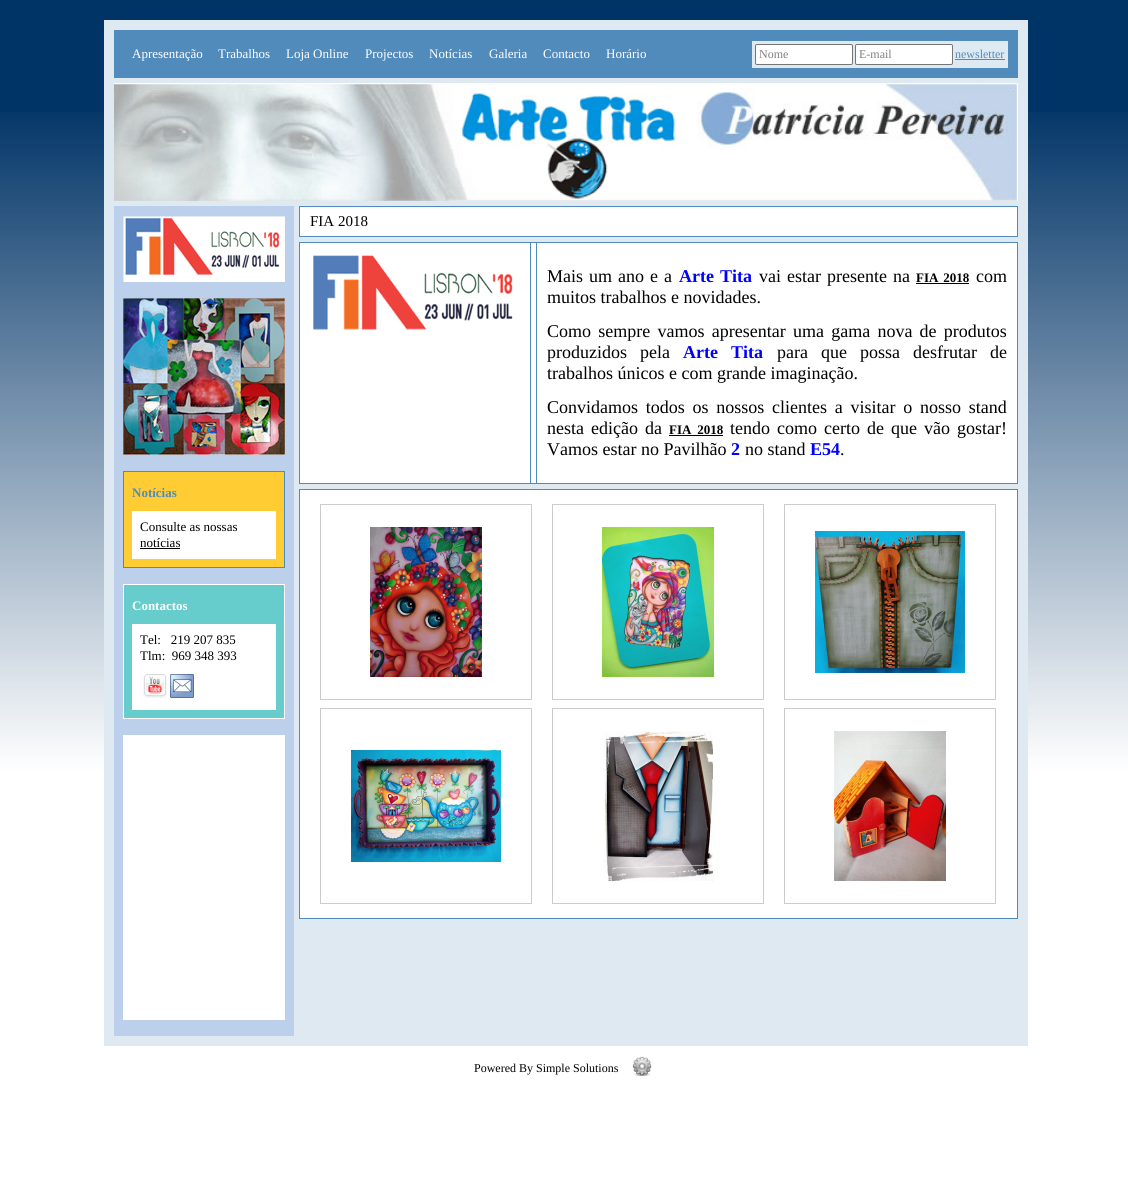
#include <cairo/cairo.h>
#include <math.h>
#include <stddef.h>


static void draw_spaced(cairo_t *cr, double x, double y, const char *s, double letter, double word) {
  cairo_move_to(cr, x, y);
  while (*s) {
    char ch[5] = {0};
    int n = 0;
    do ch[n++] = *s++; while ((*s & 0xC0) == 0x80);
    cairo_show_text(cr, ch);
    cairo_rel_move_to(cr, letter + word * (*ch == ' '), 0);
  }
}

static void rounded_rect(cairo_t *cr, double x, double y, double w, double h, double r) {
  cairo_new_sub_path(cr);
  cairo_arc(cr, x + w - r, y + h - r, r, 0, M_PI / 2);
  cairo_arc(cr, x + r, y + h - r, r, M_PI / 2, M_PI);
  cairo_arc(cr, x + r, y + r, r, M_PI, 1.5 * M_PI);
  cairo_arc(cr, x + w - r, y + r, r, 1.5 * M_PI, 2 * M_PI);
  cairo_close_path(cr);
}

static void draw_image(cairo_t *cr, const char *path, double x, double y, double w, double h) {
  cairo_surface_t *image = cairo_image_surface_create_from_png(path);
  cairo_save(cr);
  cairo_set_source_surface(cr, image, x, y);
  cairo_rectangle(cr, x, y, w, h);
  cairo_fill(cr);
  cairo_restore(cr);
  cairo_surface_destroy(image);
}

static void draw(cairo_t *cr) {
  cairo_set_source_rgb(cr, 0, 51 / 255.0, 102 / 255.0);
  cairo_paint(cr);
  draw_image(cr, "images/1.png", 0, 112, 1128, 1065);
  cairo_set_source_rgb(cr, 223 / 255.0, 233 / 255.0, 242 / 255.0);
  cairo_rectangle(cr, 104, 20, 924, 1026);
  cairo_fill(cr);
  cairo_set_source_rgb(cr, 81 / 255.0, 139 / 255.0, 187 / 255.0);
  cairo_rectangle(cr, 114, 30, 904, 48);
  cairo_fill(cr);
  cairo_set_source_rgb(cr, 223 / 255.0, 233 / 255.0, 242 / 255.0);
  cairo_rectangle(cr, 752, 41, 256, 27);
  cairo_fill(cr);
  cairo_set_source_rgb(cr, 1, 1, 1);
  rounded_rect(cr, 755.5, 44.5, 97, 20, 1.5);
  cairo_fill_preserve(cr);
  cairo_set_source_rgb(cr, 118 / 255.0, 118 / 255.0, 118 / 255.0);
  cairo_set_line_width(cr, 1);
  cairo_stroke(cr);
  cairo_set_source_rgb(cr, 1, 1, 1);
  rounded_rect(cr, 855.5, 44.5, 97, 20, 1.5);
  cairo_fill_preserve(cr);
  cairo_set_source_rgb(cr, 118 / 255.0, 118 / 255.0, 118 / 255.0);
  cairo_stroke(cr);
  cairo_set_source_rgb(cr, 81 / 255.0, 139 / 255.0, 187 / 255.0);
  cairo_rectangle(cr, 955, 59, 50, 1);
  cairo_fill(cr);
  draw_image(cr, "images/2.png", 114, 83, 904, 118);
  cairo_set_source_rgb(cr, 1, 1, 1);
  cairo_rectangle(cr, 299.5, 206.5, 718, 30);
  cairo_fill_preserve(cr);
  cairo_set_source_rgb(cr, 81 / 255.0, 139 / 255.0, 187 / 255.0);
  cairo_stroke(cr);
  cairo_set_source_rgb(cr, 1, 1, 1);
  cairo_rectangle(cr, 299.5, 242.5, 718, 241);
  cairo_fill_preserve(cr);
  cairo_set_source_rgb(cr, 81 / 255.0, 139 / 255.0, 187 / 255.0);
  cairo_stroke(cr);
  cairo_rectangle(cr, 299.5, 242.5, 231, 241);
  cairo_stroke(cr);
  draw_image(cr, "images/3.png", 313, 255, 200, 75);
  cairo_rectangle(cr, 536.5, 242.5, 481, 241);
  cairo_stroke(cr);
  cairo_set_source_rgb(cr, 0, 0, 0);
  cairo_rectangle(cr, 916, 283, 53, 1);
  cairo_fill(cr);
  cairo_rectangle(cr, 669, 435, 54, 1);
  cairo_fill(cr);
  cairo_set_source_rgb(cr, 1, 1, 1);
  cairo_rectangle(cr, 299.5, 489.5, 718, 429);
  cairo_fill_preserve(cr);
  cairo_set_source_rgb(cr, 81 / 255.0, 139 / 255.0, 187 / 255.0);
  cairo_stroke(cr);
  cairo_rectangle(cr, 320.5, 504.5, 211, 195);
  cairo_set_source_rgb(cr, 204 / 255.0, 204 / 255.0, 204 / 255.0);
  cairo_stroke(cr);
  draw_image(cr, "images/4.png", 370, 527, 112, 150);
  cairo_rectangle(cr, 552.5, 504.5, 211, 195);
  cairo_stroke(cr);
  draw_image(cr, "images/5.png", 602, 527, 112, 150);
  cairo_rectangle(cr, 784.5, 504.5, 211, 195);
  cairo_stroke(cr);
  draw_image(cr, "images/6.png", 815, 531, 150, 142);
  cairo_rectangle(cr, 320.5, 708.5, 211, 195);
  cairo_stroke(cr);
  draw_image(cr, "images/7.png", 351, 750, 150, 112);
  cairo_rectangle(cr, 552.5, 708.5, 211, 195);
  cairo_stroke(cr);
  draw_image(cr, "images/8.png", 603, 731, 110, 150);
  cairo_rectangle(cr, 784.5, 708.5, 211, 195);
  cairo_stroke(cr);
  draw_image(cr, "images/9.png", 834, 731, 112, 150);
  cairo_set_source_rgb(cr, 188 / 255.0, 208 / 255.0, 235 / 255.0);
  cairo_rectangle(cr, 114, 206, 180, 830);
  cairo_fill(cr);
  draw_image(cr, "images/10.png", 123, 216, 162, 66);
  draw_image(cr, "images/11.png", 123, 298, 162, 157);
  cairo_set_source_rgb(cr, 1, 204 / 255.0, 51 / 255.0);
  cairo_rectangle(cr, 123.5, 471.5, 161, 96);
  cairo_fill_preserve(cr);
  cairo_set_source_rgb(cr, 81 / 255.0, 139 / 255.0, 187 / 255.0);
  cairo_stroke(cr);
  cairo_set_source_rgb(cr, 1, 1, 1);
  cairo_rectangle(cr, 132, 511, 144, 48);
  cairo_fill(cr);
  cairo_set_source_rgb(cr, 0, 0, 0);
  cairo_rectangle(cr, 140, 548, 40, 1);
  cairo_fill(cr);
  cairo_set_source_rgb(cr, 102 / 255.0, 204 / 255.0, 204 / 255.0);
  cairo_rectangle(cr, 123.5, 584.5, 161, 134);
  cairo_fill_preserve(cr);
  cairo_set_source_rgb(cr, 1, 1, 1);
  cairo_stroke(cr);
  cairo_rectangle(cr, 132, 624, 144, 86);
  cairo_fill(cr);
  draw_image(cr, "images/12.png", 143, 674, 24, 24);
  draw_image(cr, "images/13.png", 170, 674, 24, 24);
  cairo_rectangle(cr, 123, 735, 162, 285);
  cairo_fill(cr);
  draw_image(cr, "images/14.png", 632, 1056, 20, 20);
  cairo_select_font_face(cr, "Liberation Serif", CAIRO_FONT_SLANT_NORMAL, CAIRO_FONT_WEIGHT_NORMAL);
  cairo_set_font_size(cr, 13);
  cairo_move_to(cr, 132, 58);
  cairo_show_text(cr, "Apresentação");
  cairo_move_to(cr, 218, 58);
  cairo_show_text(cr, "Trabalhos");
  cairo_move_to(cr, 286, 58);
  cairo_show_text(cr, "Loja Online");
  cairo_move_to(cr, 365, 58);
  cairo_show_text(cr, "Projectos");
  cairo_move_to(cr, 429, 58);
  cairo_show_text(cr, "Notícias");
  cairo_move_to(cr, 489, 58);
  cairo_show_text(cr, "Galeria");
  cairo_move_to(cr, 543, 58);
  cairo_show_text(cr, "Contacto");
  cairo_move_to(cr, 606, 58);
  cairo_show_text(cr, "Horário");
  cairo_set_font_size(cr, 12);
  cairo_set_source_rgb(cr, 128 / 255.0, 128 / 255.0, 128 / 255.0);
  cairo_move_to(cr, 759, 58);
  cairo_show_text(cr, "Nome");
  cairo_move_to(cr, 859, 58);
  cairo_show_text(cr, "E-mail");
  cairo_set_source_rgb(cr, 81 / 255.0, 139 / 255.0, 187 / 255.0);
  cairo_move_to(cr, 955, 58);
  cairo_show_text(cr, "newsletter");
  cairo_set_font_size(cr, 15);
  cairo_set_source_rgb(cr, 0, 0, 0);
  cairo_move_to(cr, 310, 226);
  cairo_show_text(cr, "FIA 2018");
  cairo_set_font_size(cr, 18);
  draw_spaced(cr, 547, 282, "Mais um ano e a", 0, 1.5);
  cairo_select_font_face(cr, "Liberation Serif", CAIRO_FONT_SLANT_NORMAL, CAIRO_FONT_WEIGHT_BOLD);
  cairo_set_source_rgb(cr, 0, 0, 1);
  draw_spaced(cr, 679, 282, "Arte Tita", 0, 1.5);
  cairo_select_font_face(cr, "Liberation Serif", CAIRO_FONT_SLANT_NORMAL, CAIRO_FONT_WEIGHT_NORMAL);
  cairo_set_source_rgb(cr, 0, 0, 0);
  draw_spaced(cr, 759, 282, "vai estar presente na", 0, 1.5);
  cairo_select_font_face(cr, "Liberation Serif", CAIRO_FONT_SLANT_NORMAL, CAIRO_FONT_WEIGHT_BOLD);
  cairo_set_font_size(cr, 13);
  draw_spaced(cr, 916, 282, "FIA 2018", 0, 1.5);
  cairo_select_font_face(cr, "Liberation Serif", CAIRO_FONT_SLANT_NORMAL, CAIRO_FONT_WEIGHT_NORMAL);
  cairo_set_font_size(cr, 18);
  cairo_move_to(cr, 976, 282);
  cairo_show_text(cr, "com");
  cairo_move_to(cr, 547, 303);
  cairo_show_text(cr, "muitos trabalhos e novidades.");
  draw_spaced(cr, 547, 337, "Como sempre vamos apresentar uma gama nova de produtos", 0, 2.75);
  draw_spaced(cr, 547, 358, "produzidos pela", 0, 8.5);
  cairo_select_font_face(cr, "Liberation Serif", CAIRO_FONT_SLANT_NORMAL, CAIRO_FONT_WEIGHT_BOLD);
  cairo_set_source_rgb(cr, 0, 0, 1);
  cairo_move_to(cr, 683, 358);
  cairo_show_text(cr, "Arte");
  cairo_move_to(cr, 731, 358);
  cairo_show_text(cr, "Tita");
  cairo_select_font_face(cr, "Liberation Serif", CAIRO_FONT_SLANT_NORMAL, CAIRO_FONT_WEIGHT_NORMAL);
  cairo_set_source_rgb(cr, 0, 0, 0);
  draw_spaced(cr, 777, 358, "para que possa desfrutar de", 0, 8.5);
  cairo_move_to(cr, 547, 379);
  cairo_show_text(cr, "trabalhos únicos e com grande imaginação.");
  draw_spaced(cr, 547, 413, "Convidamos todos os nossos clientes a visitar o nosso stand", 0, 3.25);
  draw_spaced(cr, 547, 434, "nesta edição da", 0, 2.5);
  cairo_select_font_face(cr, "Liberation Serif", CAIRO_FONT_SLANT_NORMAL, CAIRO_FONT_WEIGHT_BOLD);
  cairo_set_font_size(cr, 13);
  draw_spaced(cr, 669, 434, "FIA 2018", 0, 2.5);
  cairo_select_font_face(cr, "Liberation Serif", CAIRO_FONT_SLANT_NORMAL, CAIRO_FONT_WEIGHT_NORMAL);
  cairo_set_font_size(cr, 18);
  draw_spaced(cr, 730, 434, "tendo como certo de que vão gostar!", 0, 2.5);
  cairo_move_to(cr, 547, 455);
  cairo_show_text(cr, "Vamos estar no Pavilhão");
  cairo_select_font_face(cr, "Liberation Serif", CAIRO_FONT_SLANT_NORMAL, CAIRO_FONT_WEIGHT_BOLD);
  cairo_set_source_rgb(cr, 0, 0, 1);
  cairo_move_to(cr, 731, 455);
  cairo_show_text(cr, "2");
  cairo_select_font_face(cr, "Liberation Serif", CAIRO_FONT_SLANT_NORMAL, CAIRO_FONT_WEIGHT_NORMAL);
  cairo_set_source_rgb(cr, 0, 0, 0);
  cairo_move_to(cr, 745, 455);
  cairo_show_text(cr, "no stand");
  cairo_select_font_face(cr, "Liberation Serif", CAIRO_FONT_SLANT_NORMAL, CAIRO_FONT_WEIGHT_BOLD);
  cairo_set_source_rgb(cr, 0, 0, 1);
  cairo_move_to(cr, 810, 455);
  cairo_show_text(cr, "E54");
  cairo_select_font_face(cr, "Liberation Serif", CAIRO_FONT_SLANT_NORMAL, CAIRO_FONT_WEIGHT_NORMAL);
  cairo_set_source_rgb(cr, 0, 0, 0);
  cairo_move_to(cr, 840, 455);
  cairo_show_text(cr, ".");
  cairo_select_font_face(cr, "Liberation Serif", CAIRO_FONT_SLANT_NORMAL, CAIRO_FONT_WEIGHT_BOLD);
  cairo_set_font_size(cr, 13);
  cairo_set_source_rgb(cr, 81 / 255.0, 139 / 255.0, 187 / 255.0);
  cairo_move_to(cr, 132, 497);
  cairo_show_text(cr, "Notícias");
  cairo_select_font_face(cr, "Liberation Serif", CAIRO_FONT_SLANT_NORMAL, CAIRO_FONT_WEIGHT_NORMAL);
  cairo_set_source_rgb(cr, 0, 0, 0);
  cairo_move_to(cr, 140, 531);
  cairo_show_text(cr, "Consulte as nossas");
  cairo_move_to(cr, 140, 547);
  cairo_show_text(cr, "notícias");
  cairo_select_font_face(cr, "Liberation Serif", CAIRO_FONT_SLANT_NORMAL, CAIRO_FONT_WEIGHT_BOLD);
  cairo_set_source_rgb(cr, 1, 1, 1);
  cairo_move_to(cr, 132, 610);
  cairo_show_text(cr, "Contactos");
  cairo_select_font_face(cr, "Liberation Serif", CAIRO_FONT_SLANT_NORMAL, CAIRO_FONT_WEIGHT_NORMAL);
  cairo_set_source_rgb(cr, 0, 0, 0);
  cairo_move_to(cr, 140, 644);
  cairo_show_text(cr, "Tel:   219 207 835");
  cairo_move_to(cr, 140, 660);
  cairo_show_text(cr, "Tlm:  969 348 393");
  cairo_set_font_size(cr, 12);
  cairo_move_to(cr, 474, 1072);
  cairo_show_text(cr, "Powered By Simple Solutions");
}

int main(void) {
  cairo_surface_t *surface = cairo_image_surface_create(CAIRO_FORMAT_RGB24, 1128, 1177);
  cairo_t *cr = cairo_create(surface);
  cairo_font_options_t *options = cairo_font_options_create();
  cairo_font_options_set_hint_metrics(options, CAIRO_HINT_METRICS_OFF);
  cairo_font_options_set_hint_style(options, CAIRO_HINT_STYLE_NONE);
  cairo_set_font_options(cr, options);
  cairo_set_miter_limit(cr, 4);
  draw(cr);
  cairo_surface_write_to_png(surface, "out.png");
  cairo_font_options_destroy(options);
  cairo_destroy(cr);
  cairo_surface_destroy(surface);
  return 0;
}
